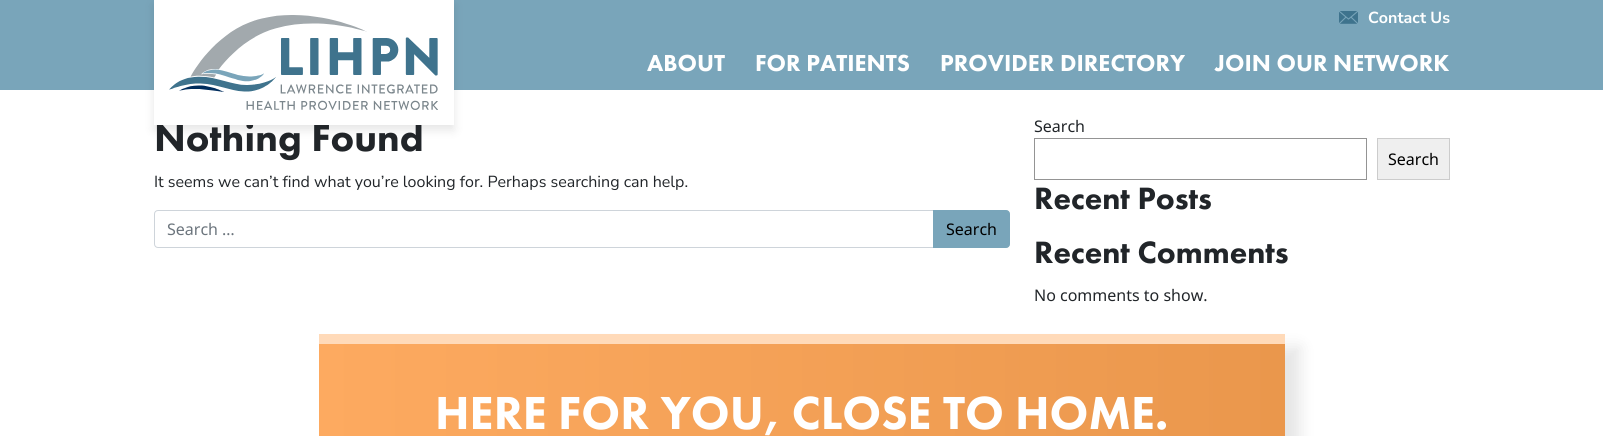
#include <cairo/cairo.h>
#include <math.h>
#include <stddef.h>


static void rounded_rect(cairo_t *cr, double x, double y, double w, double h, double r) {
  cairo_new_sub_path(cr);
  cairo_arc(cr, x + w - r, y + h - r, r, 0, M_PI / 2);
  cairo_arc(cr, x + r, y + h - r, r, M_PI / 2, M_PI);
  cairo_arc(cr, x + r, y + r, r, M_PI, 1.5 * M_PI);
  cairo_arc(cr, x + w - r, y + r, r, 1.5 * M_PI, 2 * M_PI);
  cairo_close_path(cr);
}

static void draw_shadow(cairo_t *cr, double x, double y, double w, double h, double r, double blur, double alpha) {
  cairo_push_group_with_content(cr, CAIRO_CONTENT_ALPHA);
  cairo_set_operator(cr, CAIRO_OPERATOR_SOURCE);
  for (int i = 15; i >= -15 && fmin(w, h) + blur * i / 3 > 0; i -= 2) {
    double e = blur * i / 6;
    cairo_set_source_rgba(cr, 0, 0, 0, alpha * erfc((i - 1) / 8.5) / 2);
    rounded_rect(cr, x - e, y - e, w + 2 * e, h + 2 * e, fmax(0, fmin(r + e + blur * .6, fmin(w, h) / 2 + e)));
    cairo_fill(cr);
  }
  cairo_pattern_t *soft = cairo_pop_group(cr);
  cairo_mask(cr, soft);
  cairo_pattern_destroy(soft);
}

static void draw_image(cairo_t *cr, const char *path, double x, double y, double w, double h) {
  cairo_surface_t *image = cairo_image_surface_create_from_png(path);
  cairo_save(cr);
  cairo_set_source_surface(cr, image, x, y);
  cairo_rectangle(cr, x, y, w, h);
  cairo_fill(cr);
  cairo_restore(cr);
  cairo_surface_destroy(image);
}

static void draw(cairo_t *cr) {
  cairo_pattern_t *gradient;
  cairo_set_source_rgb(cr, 1, 1, 1);
  cairo_paint(cr);
  cairo_set_source_rgb(cr, 121 / 255.0, 165 / 255.0, 186 / 255.0);
  cairo_rectangle(cr, 0, 0, 1603, 90);
  cairo_fill(cr);
  cairo_set_source_rgb(cr, 0, 0, 0);
  draw_shadow(cr, 154, 5, 300, 125, 0, 5, 0.1);
  draw_image(cr, "images/2.png", 1339, 11, 19, 13);
  cairo_new_path(cr);
  cairo_move_to(cr, 158, 210.5);
  cairo_line_to(cr, 933.5, 210.5);
  cairo_line_to(cr, 933.5, 247.5);
  cairo_line_to(cr, 158, 247.5);
  cairo_curve_to(cr, 156, 247.5, 154.5, 246, 154.5, 244);
  cairo_line_to(cr, 154.5, 214);
  cairo_curve_to(cr, 154.5, 212, 156, 210.5, 158, 210.5);
  cairo_close_path(cr);
  cairo_set_source_rgb(cr, 206 / 255.0, 212 / 255.0, 218 / 255.0);
  cairo_set_line_width(cr, 1);
  cairo_stroke(cr);
  cairo_set_source_rgb(cr, 121 / 255.0, 165 / 255.0, 186 / 255.0);
  cairo_new_path(cr);
  cairo_move_to(cr, 933.5, 210.5);
  cairo_line_to(cr, 1006, 210.5);
  cairo_curve_to(cr, 1008, 210.5, 1009.5, 212, 1009.5, 214);
  cairo_line_to(cr, 1009.5, 244);
  cairo_curve_to(cr, 1009.5, 246, 1008, 247.5, 1006, 247.5);
  cairo_line_to(cr, 933.5, 247.5);
  cairo_close_path(cr);
  cairo_fill_preserve(cr);
  cairo_stroke(cr);
  cairo_rectangle(cr, 1034.5, 138.5, 332, 41);
  cairo_set_source_rgb(cr, 148 / 255.0, 148 / 255.0, 148 / 255.0);
  cairo_stroke(cr);
  cairo_set_source_rgb(cr, 239 / 255.0, 239 / 255.0, 239 / 255.0);
  cairo_rectangle(cr, 1377.5, 138.5, 72, 41);
  cairo_fill_preserve(cr);
  cairo_set_source_rgb(cr, 204 / 255.0, 204 / 255.0, 204 / 255.0);
  cairo_stroke(cr);
  cairo_set_source_rgb(cr, 0, 0, 0);
  draw_shadow(cr, 334, 347, 966, 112, 0, 7.5, 0.1);
  gradient = cairo_pattern_create_linear(319, 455, 1285, 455);
  cairo_pattern_add_color_stop_rgba(gradient, 0, 253 / 255.0, 170 / 255.0, 96 / 255.0, 1);
  cairo_pattern_add_color_stop_rgba(gradient, 1, 234 / 255.0, 151 / 255.0, 76 / 255.0, 1);
  cairo_set_source(cr, gradient);
  cairo_pattern_destroy(gradient);
  cairo_rectangle(cr, 319, 344, 966, 92);
  cairo_fill(cr);
  cairo_set_source_rgb(cr, 1, 218 / 255.0, 185 / 255.0);
  cairo_rectangle(cr, 319, 334, 966, 10);
  cairo_fill(cr);
  cairo_select_font_face(cr, "Nunito Sans", CAIRO_FONT_SLANT_NORMAL, CAIRO_FONT_WEIGHT_BOLD);
  cairo_set_font_size(cr, 16);
  cairo_set_source_rgb(cr, 1, 1, 1);
  cairo_move_to(cr, 1368, 23);
  cairo_show_text(cr, "Contact Us");
  cairo_select_font_face(cr, "Futura PT Black", CAIRO_FONT_SLANT_NORMAL, CAIRO_FONT_WEIGHT_NORMAL);
  cairo_set_font_size(cr, 24);
  cairo_move_to(cr, 647, 71);
  cairo_show_text(cr, "ABOUT");
  cairo_move_to(cr, 755, 71);
  cairo_show_text(cr, "FOR PATIENTS");
  cairo_move_to(cr, 940, 71);
  cairo_show_text(cr, "PROVIDER DIRECTORY");
  cairo_move_to(cr, 1215, 71);
  cairo_show_text(cr, "JOIN OUR NETWORK");
  cairo_set_font_size(cr, 40);
  cairo_set_source_rgb(cr, 33 / 255.0, 37 / 255.0, 41 / 255.0);
  cairo_move_to(cr, 154, 151);
  cairo_show_text(cr, "Nothing Found");
  cairo_set_source_rgb(cr, 1, 1, 1);
  cairo_rectangle(cr, 154, 0, 300, 125);
  cairo_fill(cr);
  draw_image(cr, "images/1.png", 169, 15, 269, 95);
  cairo_select_font_face(cr, "Nunito Sans", CAIRO_FONT_SLANT_NORMAL, CAIRO_FONT_WEIGHT_NORMAL);
  cairo_set_font_size(cr, 16);
  cairo_set_source_rgb(cr, 33 / 255.0, 37 / 255.0, 41 / 255.0);
  cairo_move_to(cr, 154, 187);
  cairo_show_text(cr, "It seems we can’t find what you’re looking for. Perhaps searching can help.");
  cairo_select_font_face(cr, "Noto Sans", CAIRO_FONT_SLANT_NORMAL, CAIRO_FONT_WEIGHT_NORMAL);
  cairo_set_source_rgb(cr, 108 / 255.0, 117 / 255.0, 125 / 255.0);
  cairo_move_to(cr, 167, 235);
  cairo_show_text(cr, "Search …");
  cairo_set_source_rgb(cr, 0, 0, 0);
  cairo_move_to(cr, 946, 235);
  cairo_show_text(cr, "Search");
  cairo_set_source_rgb(cr, 33 / 255.0, 37 / 255.0, 41 / 255.0);
  cairo_move_to(cr, 1034, 132);
  cairo_show_text(cr, "Search");
  cairo_set_source_rgb(cr, 0, 0, 0);
  cairo_move_to(cr, 1388, 165);
  cairo_show_text(cr, "Search");
  cairo_select_font_face(cr, "Futura PT Black", CAIRO_FONT_SLANT_NORMAL, CAIRO_FONT_WEIGHT_NORMAL);
  cairo_set_font_size(cr, 32);
  cairo_set_source_rgb(cr, 33 / 255.0, 37 / 255.0, 41 / 255.0);
  cairo_move_to(cr, 1034, 209);
  cairo_show_text(cr, "Recent Posts");
  cairo_move_to(cr, 1034, 263);
  cairo_show_text(cr, "Recent Comments");
  cairo_select_font_face(cr, "Noto Sans", CAIRO_FONT_SLANT_NORMAL, CAIRO_FONT_WEIGHT_NORMAL);
  cairo_set_font_size(cr, 16);
  cairo_move_to(cr, 1034, 301);
  cairo_show_text(cr, "No comments to show.");
  cairo_select_font_face(cr, "Futura PT Black", CAIRO_FONT_SLANT_NORMAL, CAIRO_FONT_WEIGHT_NORMAL);
  cairo_set_font_size(cr, 48);
  cairo_set_source_rgb(cr, 1, 1, 1);
  cairo_move_to(cr, 435, 429);
  cairo_show_text(cr, "HERE FOR YOU, CLOSE TO HOME.");
}

int main(void) {
  cairo_surface_t *surface = cairo_image_surface_create(CAIRO_FORMAT_RGB24, 1603, 436);
  cairo_t *cr = cairo_create(surface);
  cairo_font_options_t *options = cairo_font_options_create();
  cairo_font_options_set_hint_metrics(options, CAIRO_HINT_METRICS_OFF);
  cairo_font_options_set_hint_style(options, CAIRO_HINT_STYLE_NONE);
  cairo_set_font_options(cr, options);
  cairo_set_miter_limit(cr, 4);
  draw(cr);
  cairo_surface_write_to_png(surface, "out.png");
  cairo_font_options_destroy(options);
  cairo_destroy(cr);
  cairo_surface_destroy(surface);
  return 0;
}
